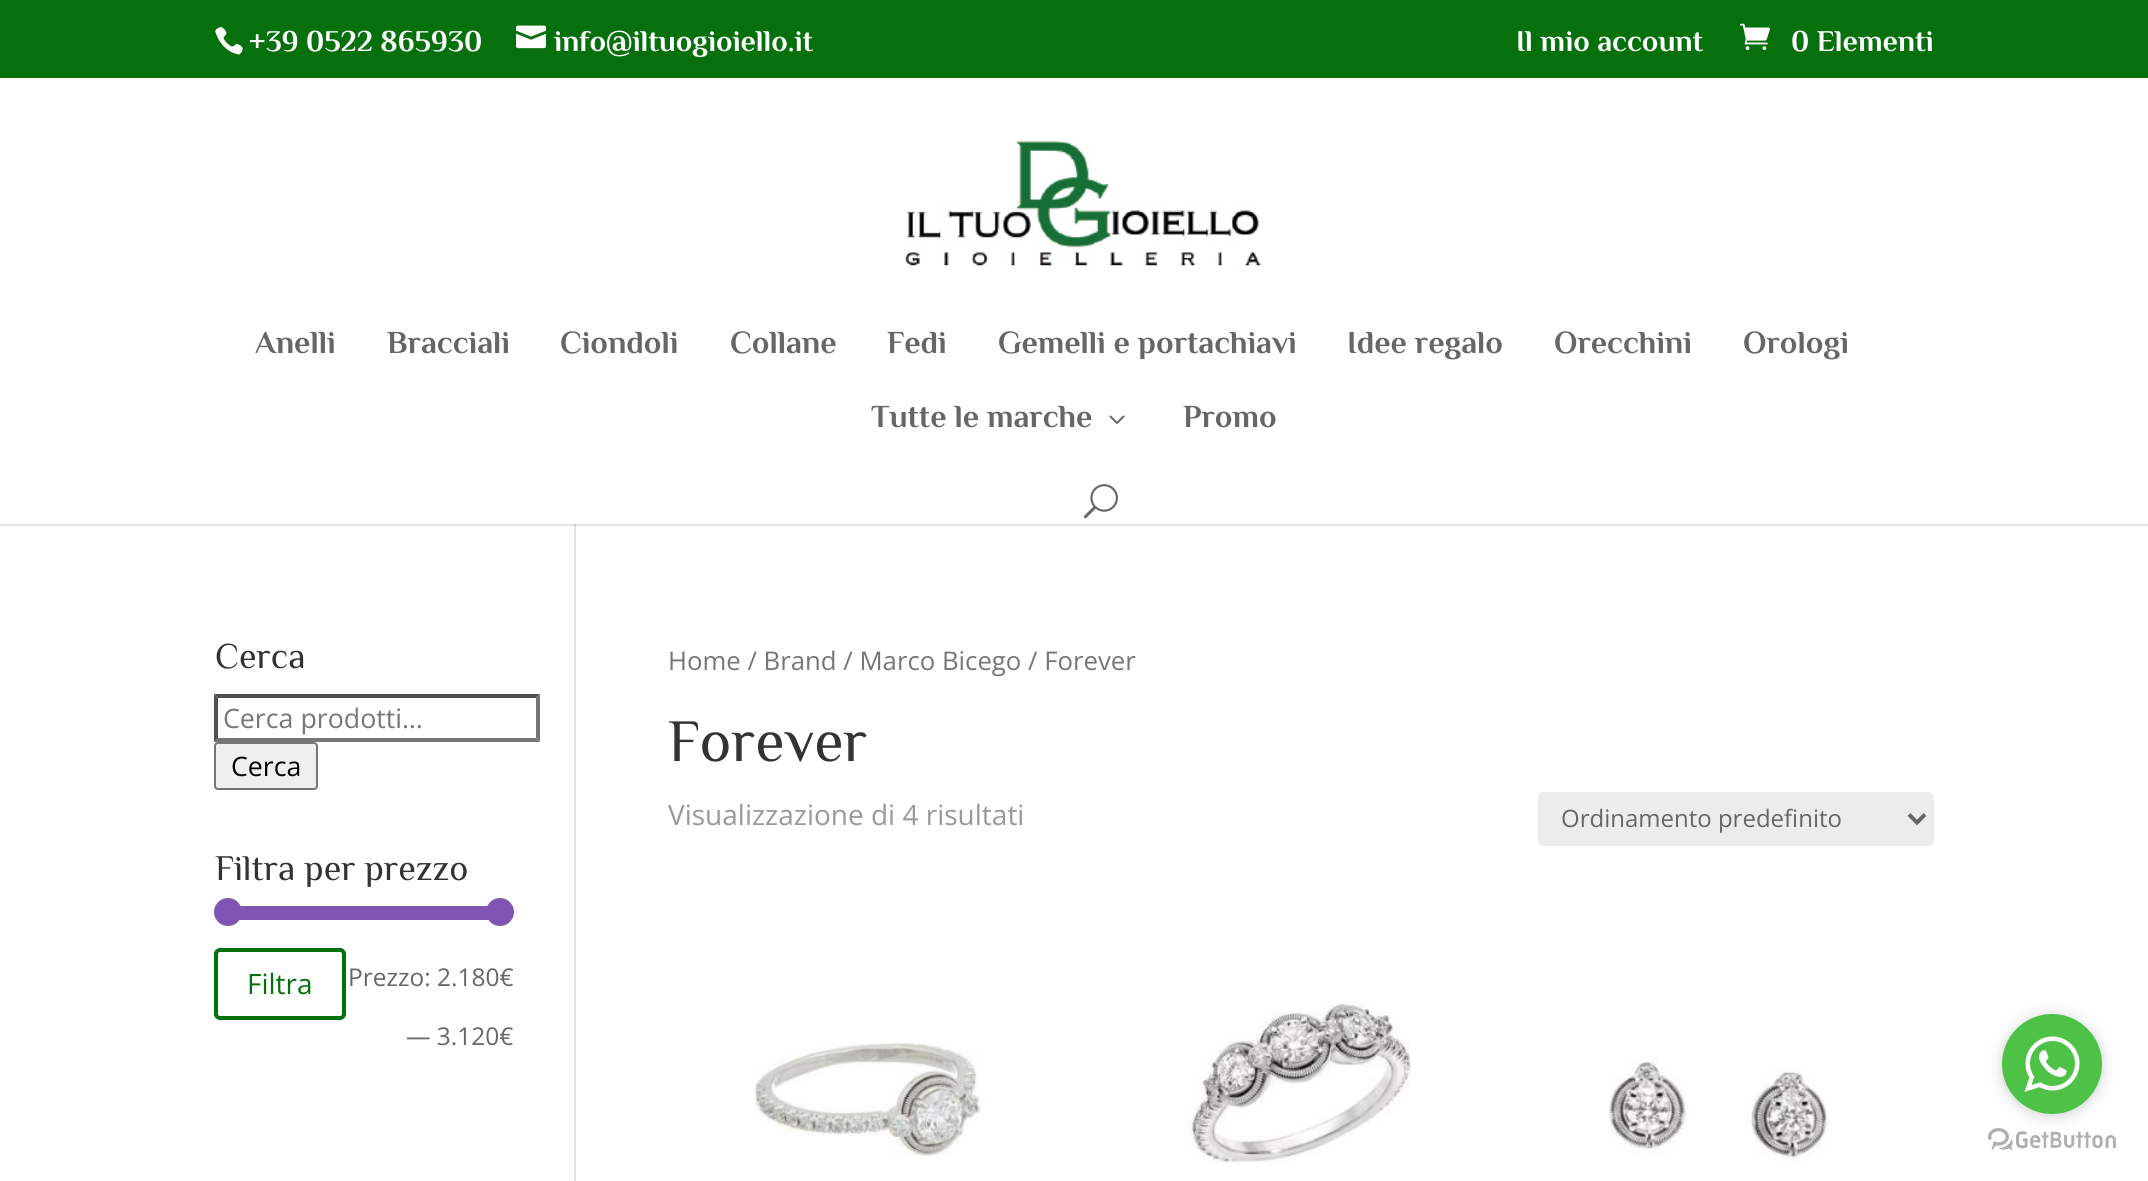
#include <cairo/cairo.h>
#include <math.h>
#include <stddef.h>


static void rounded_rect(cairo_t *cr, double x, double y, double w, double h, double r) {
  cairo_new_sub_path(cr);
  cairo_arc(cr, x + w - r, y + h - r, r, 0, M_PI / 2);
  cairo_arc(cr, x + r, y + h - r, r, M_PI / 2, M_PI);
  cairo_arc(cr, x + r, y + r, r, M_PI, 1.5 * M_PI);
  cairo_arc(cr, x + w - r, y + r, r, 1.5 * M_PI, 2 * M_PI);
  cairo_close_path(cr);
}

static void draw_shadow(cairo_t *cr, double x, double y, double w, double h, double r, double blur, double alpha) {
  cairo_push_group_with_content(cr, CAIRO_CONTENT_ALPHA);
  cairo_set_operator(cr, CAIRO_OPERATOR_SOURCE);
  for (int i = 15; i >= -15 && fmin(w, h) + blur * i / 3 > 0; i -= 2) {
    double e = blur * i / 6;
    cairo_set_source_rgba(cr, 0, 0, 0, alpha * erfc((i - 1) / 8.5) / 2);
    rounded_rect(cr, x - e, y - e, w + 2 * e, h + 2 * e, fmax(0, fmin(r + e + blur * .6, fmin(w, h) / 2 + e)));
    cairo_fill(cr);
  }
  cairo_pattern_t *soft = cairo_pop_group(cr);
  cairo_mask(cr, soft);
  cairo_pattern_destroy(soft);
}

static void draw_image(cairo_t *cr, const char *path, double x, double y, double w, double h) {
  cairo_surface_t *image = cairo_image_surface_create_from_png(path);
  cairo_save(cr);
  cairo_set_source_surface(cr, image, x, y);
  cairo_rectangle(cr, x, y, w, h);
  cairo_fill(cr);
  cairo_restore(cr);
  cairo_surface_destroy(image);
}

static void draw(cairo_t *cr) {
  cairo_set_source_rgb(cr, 6 / 255.0, 112 / 255.0, 12 / 255.0);
  cairo_paint(cr);
  draw_image(cr, "images/1.png", 215, 27, 28, 28);
  draw_image(cr, "images/2.png", 516, 25, 30, 24);
  draw_image(cr, "images/3.png", 1740, 23, 30, 27);
  cairo_set_source_rgb(cr, 1, 1, 1);
  cairo_rectangle(cr, 0, 526, 2148, 655);
  cairo_fill(cr);
  cairo_set_source_rgb(cr, 230 / 255.0, 230 / 255.0, 230 / 255.0);
  cairo_rectangle(cr, 0, 524, 2148, 2);
  cairo_fill(cr);
  cairo_set_source_rgb(cr, 226 / 255.0, 226 / 255.0, 226 / 255.0);
  cairo_rectangle(cr, 574, 522, 2, 659);
  cairo_fill(cr);
  cairo_set_source_rgb(cr, 1, 1, 1);
  cairo_rectangle(cr, 0, 78, 2148, 446);
  cairo_fill(cr);
  draw_image(cr, "images/4.png", 905, 140, 357, 127);
  draw_image(cr, "images/5.png", 1109, 415, 16, 9);
  draw_image(cr, "images/6.png", 1083, 484, 35, 35);
  cairo_set_source_rgb(cr, 203 / 255.0, 203 / 255.0, 203 / 255.0);
  cairo_rectangle(cr, 574, 524, 2, 2);
  cairo_fill(cr);
  cairo_set_source_rgb(cr, 79 / 255.0, 79 / 255.0, 79 / 255.0);
  cairo_new_path(cr);
  cairo_move_to(cr, 214, 694);
  cairo_line_to(cr, 540, 694);
  cairo_line_to(cr, 536, 698);
  cairo_line_to(cr, 218, 698);
  cairo_close_path(cr);
  cairo_fill(cr);
  cairo_set_source_rgb(cr, 118 / 255.0, 118 / 255.0, 118 / 255.0);
  cairo_new_path(cr);
  cairo_move_to(cr, 540, 694);
  cairo_line_to(cr, 540, 742);
  cairo_line_to(cr, 536, 738);
  cairo_line_to(cr, 536, 698);
  cairo_close_path(cr);
  cairo_fill(cr);
  cairo_new_path(cr);
  cairo_move_to(cr, 540, 742);
  cairo_line_to(cr, 214, 742);
  cairo_line_to(cr, 218, 738);
  cairo_line_to(cr, 536, 738);
  cairo_close_path(cr);
  cairo_fill(cr);
  cairo_set_source_rgb(cr, 79 / 255.0, 79 / 255.0, 79 / 255.0);
  cairo_new_path(cr);
  cairo_move_to(cr, 214, 742);
  cairo_line_to(cr, 214, 694);
  cairo_line_to(cr, 218, 698);
  cairo_line_to(cr, 218, 738);
  cairo_close_path(cr);
  cairo_fill(cr);
  cairo_set_source_rgb(cr, 239 / 255.0, 239 / 255.0, 239 / 255.0);
  rounded_rect(cr, 215, 743, 102, 46, 3);
  cairo_fill_preserve(cr);
  cairo_set_source_rgb(cr, 118 / 255.0, 118 / 255.0, 118 / 255.0);
  cairo_stroke(cr);
  cairo_set_source_rgb(cr, 127 / 255.0, 84 / 255.0, 179 / 255.0);
  cairo_rectangle(cr, 239, 906, 250, 14);
  cairo_fill(cr);
  cairo_arc(cr, 228, 912, 14, 0, 2 * M_PI);
  cairo_fill(cr);
  cairo_arc(cr, 500, 912, 14, 0, 2 * M_PI);
  cairo_fill(cr);
  rounded_rect(cr, 216, 950, 128, 68, 4);
  cairo_set_source_rgb(cr, 6 / 255.0, 112 / 255.0, 12 / 255.0);
  cairo_set_line_width(cr, 4);
  cairo_stroke(cr);
  cairo_set_source_rgb(cr, 236 / 255.0, 236 / 255.0, 236 / 255.0);
  rounded_rect(cr, 1538, 792, 396, 54, 6);
  cairo_fill(cr);
  cairo_new_path(cr);
  cairo_move_to(cr, 1909, 814.5);
  cairo_line_to(cr, 1917, 822.5);
  cairo_line_to(cr, 1925, 814.5);
  cairo_set_source_rgb(cr, 102 / 255.0, 102 / 255.0, 102 / 255.0);
  cairo_stroke(cr);
  draw_image(cr, "images/7.png", 754, 1042, 231, 115);
  draw_image(cr, "images/8.png", 1188, 1001, 224, 162);
  draw_image(cr, "images/9.png", 1608, 1059, 222, 103);
  draw_image(cr, "images/11.png", 1988, 1128, 128, 22);
  cairo_set_source_rgb(cr, 136 / 255.0, 136 / 255.0, 136 / 255.0);
  draw_shadow(cr, 2002, 1016, 100, 100, 50, 7, 0.4);
  cairo_set_source_rgb(cr, 77 / 255.0, 194 / 255.0, 71 / 255.0);
  cairo_arc(cr, 2052, 1064, 50, 0, 2 * M_PI);
  cairo_fill(cr);
  draw_image(cr, "images/10.png", 2024, 1036, 56, 56);
  cairo_select_font_face(cr, "Philosopher", CAIRO_FONT_SLANT_NORMAL, CAIRO_FONT_WEIGHT_BOLD);
  cairo_set_font_size(cr, 30);
  cairo_set_source_rgb(cr, 1, 1, 1);
  cairo_move_to(cr, 249, 51);
  cairo_show_text(cr, "+39 0522 865930");
  cairo_move_to(cr, 554, 51);
  cairo_show_text(cr, "info@iltuogioiello.it");
  cairo_move_to(cr, 1516, 51);
  cairo_show_text(cr, "Il mio account");
  cairo_move_to(cr, 1791, 51);
  cairo_show_text(cr, "0 Elementi");
  cairo_set_font_size(cr, 32);
  cairo_set_source_rgb(cr, 102 / 255.0, 102 / 255.0, 102 / 255.0);
  cairo_move_to(cr, 255, 353);
  cairo_show_text(cr, "Anelli");
  cairo_move_to(cr, 387, 353);
  cairo_show_text(cr, "Bracciali");
  cairo_move_to(cr, 560, 353);
  cairo_show_text(cr, "Ciondoli");
  cairo_move_to(cr, 730, 353);
  cairo_show_text(cr, "Collane");
  cairo_move_to(cr, 887, 353);
  cairo_show_text(cr, "Fedi");
  cairo_move_to(cr, 998, 353);
  cairo_show_text(cr, "Gemelli e portachiavi");
  cairo_move_to(cr, 1347, 353);
  cairo_show_text(cr, "Idee regalo");
  cairo_move_to(cr, 1554, 353);
  cairo_show_text(cr, "Orecchini");
  cairo_move_to(cr, 1743, 353);
  cairo_show_text(cr, "Orologi");
  cairo_move_to(cr, 871, 427);
  cairo_show_text(cr, "Tutte le marche");
  cairo_move_to(cr, 1183, 427);
  cairo_show_text(cr, "Promo");
  cairo_select_font_face(cr, "Philosopher", CAIRO_FONT_SLANT_NORMAL, CAIRO_FONT_WEIGHT_NORMAL);
  cairo_set_font_size(cr, 36);
  cairo_set_source_rgb(cr, 51 / 255.0, 51 / 255.0, 51 / 255.0);
  cairo_move_to(cr, 215, 668);
  cairo_show_text(cr, "Cerca");
  cairo_select_font_face(cr, "Open Sans", CAIRO_FONT_SLANT_NORMAL, CAIRO_FONT_WEIGHT_NORMAL);
  cairo_set_font_size(cr, 26.75);
  cairo_set_source_rgb(cr, 118 / 255.0, 118 / 255.0, 118 / 255.0);
  cairo_move_to(cr, 223, 728);
  cairo_show_text(cr, "Cerca prodotti…");
  cairo_set_source_rgb(cr, 0, 0, 0);
  cairo_move_to(cr, 231, 776);
  cairo_show_text(cr, "Cerca");
  cairo_select_font_face(cr, "Philosopher", CAIRO_FONT_SLANT_NORMAL, CAIRO_FONT_WEIGHT_NORMAL);
  cairo_set_font_size(cr, 36);
  cairo_set_source_rgb(cr, 51 / 255.0, 51 / 255.0, 51 / 255.0);
  cairo_move_to(cr, 215, 880);
  cairo_show_text(cr, "Filtra per prezzo");
  cairo_select_font_face(cr, "Open Sans", CAIRO_FONT_SLANT_NORMAL, CAIRO_FONT_WEIGHT_NORMAL);
  cairo_set_font_size(cr, 28);
  cairo_set_source_rgb(cr, 6 / 255.0, 112 / 255.0, 12 / 255.0);
  cairo_move_to(cr, 247, 994);
  cairo_show_text(cr, "Filtra");
  cairo_set_font_size(cr, 24.5);
  cairo_set_source_rgb(cr, 102 / 255.0, 102 / 255.0, 102 / 255.0);
  cairo_move_to(cr, 348, 986);
  cairo_show_text(cr, "Prezzo: 2.180€");
  cairo_move_to(cr, 406, 1045);
  cairo_show_text(cr, "— 3.120€");
  cairo_set_font_size(cr, 25.75);
  cairo_set_source_rgb(cr, 118 / 255.0, 118 / 255.0, 118 / 255.0);
  cairo_move_to(cr, 668, 670);
  cairo_show_text(cr, "Home / Brand / Marco Bicego / Forever");
  cairo_select_font_face(cr, "Philosopher", CAIRO_FONT_SLANT_NORMAL, CAIRO_FONT_WEIGHT_NORMAL);
  cairo_set_font_size(cr, 60);
  cairo_set_source_rgb(cr, 51 / 255.0, 51 / 255.0, 51 / 255.0);
  cairo_move_to(cr, 668, 761);
  cairo_show_text(cr, "Forever");
  cairo_select_font_face(cr, "Open Sans", CAIRO_FONT_SLANT_NORMAL, CAIRO_FONT_WEIGHT_NORMAL);
  cairo_set_font_size(cr, 28);
  cairo_set_source_rgb(cr, 153 / 255.0, 153 / 255.0, 153 / 255.0);
  cairo_move_to(cr, 668, 825);
  cairo_show_text(cr, "Visualizzazione di 4 risultati");
  cairo_set_font_size(cr, 24);
  cairo_set_source_rgb(cr, 102 / 255.0, 102 / 255.0, 102 / 255.0);
  cairo_move_to(cr, 1561, 827);
  cairo_show_text(cr, "Ordinamento predefinito");
}

int main(void) {
  cairo_surface_t *surface = cairo_image_surface_create(CAIRO_FORMAT_RGB24, 2148, 1181);
  cairo_t *cr = cairo_create(surface);
  cairo_font_options_t *options = cairo_font_options_create();
  cairo_font_options_set_hint_metrics(options, CAIRO_HINT_METRICS_OFF);
  cairo_font_options_set_hint_style(options, CAIRO_HINT_STYLE_NONE);
  cairo_set_font_options(cr, options);
  cairo_set_miter_limit(cr, 4);
  draw(cr);
  cairo_surface_write_to_png(surface, "out.png");
  cairo_font_options_destroy(options);
  cairo_destroy(cr);
  cairo_surface_destroy(surface);
  return 0;
}
